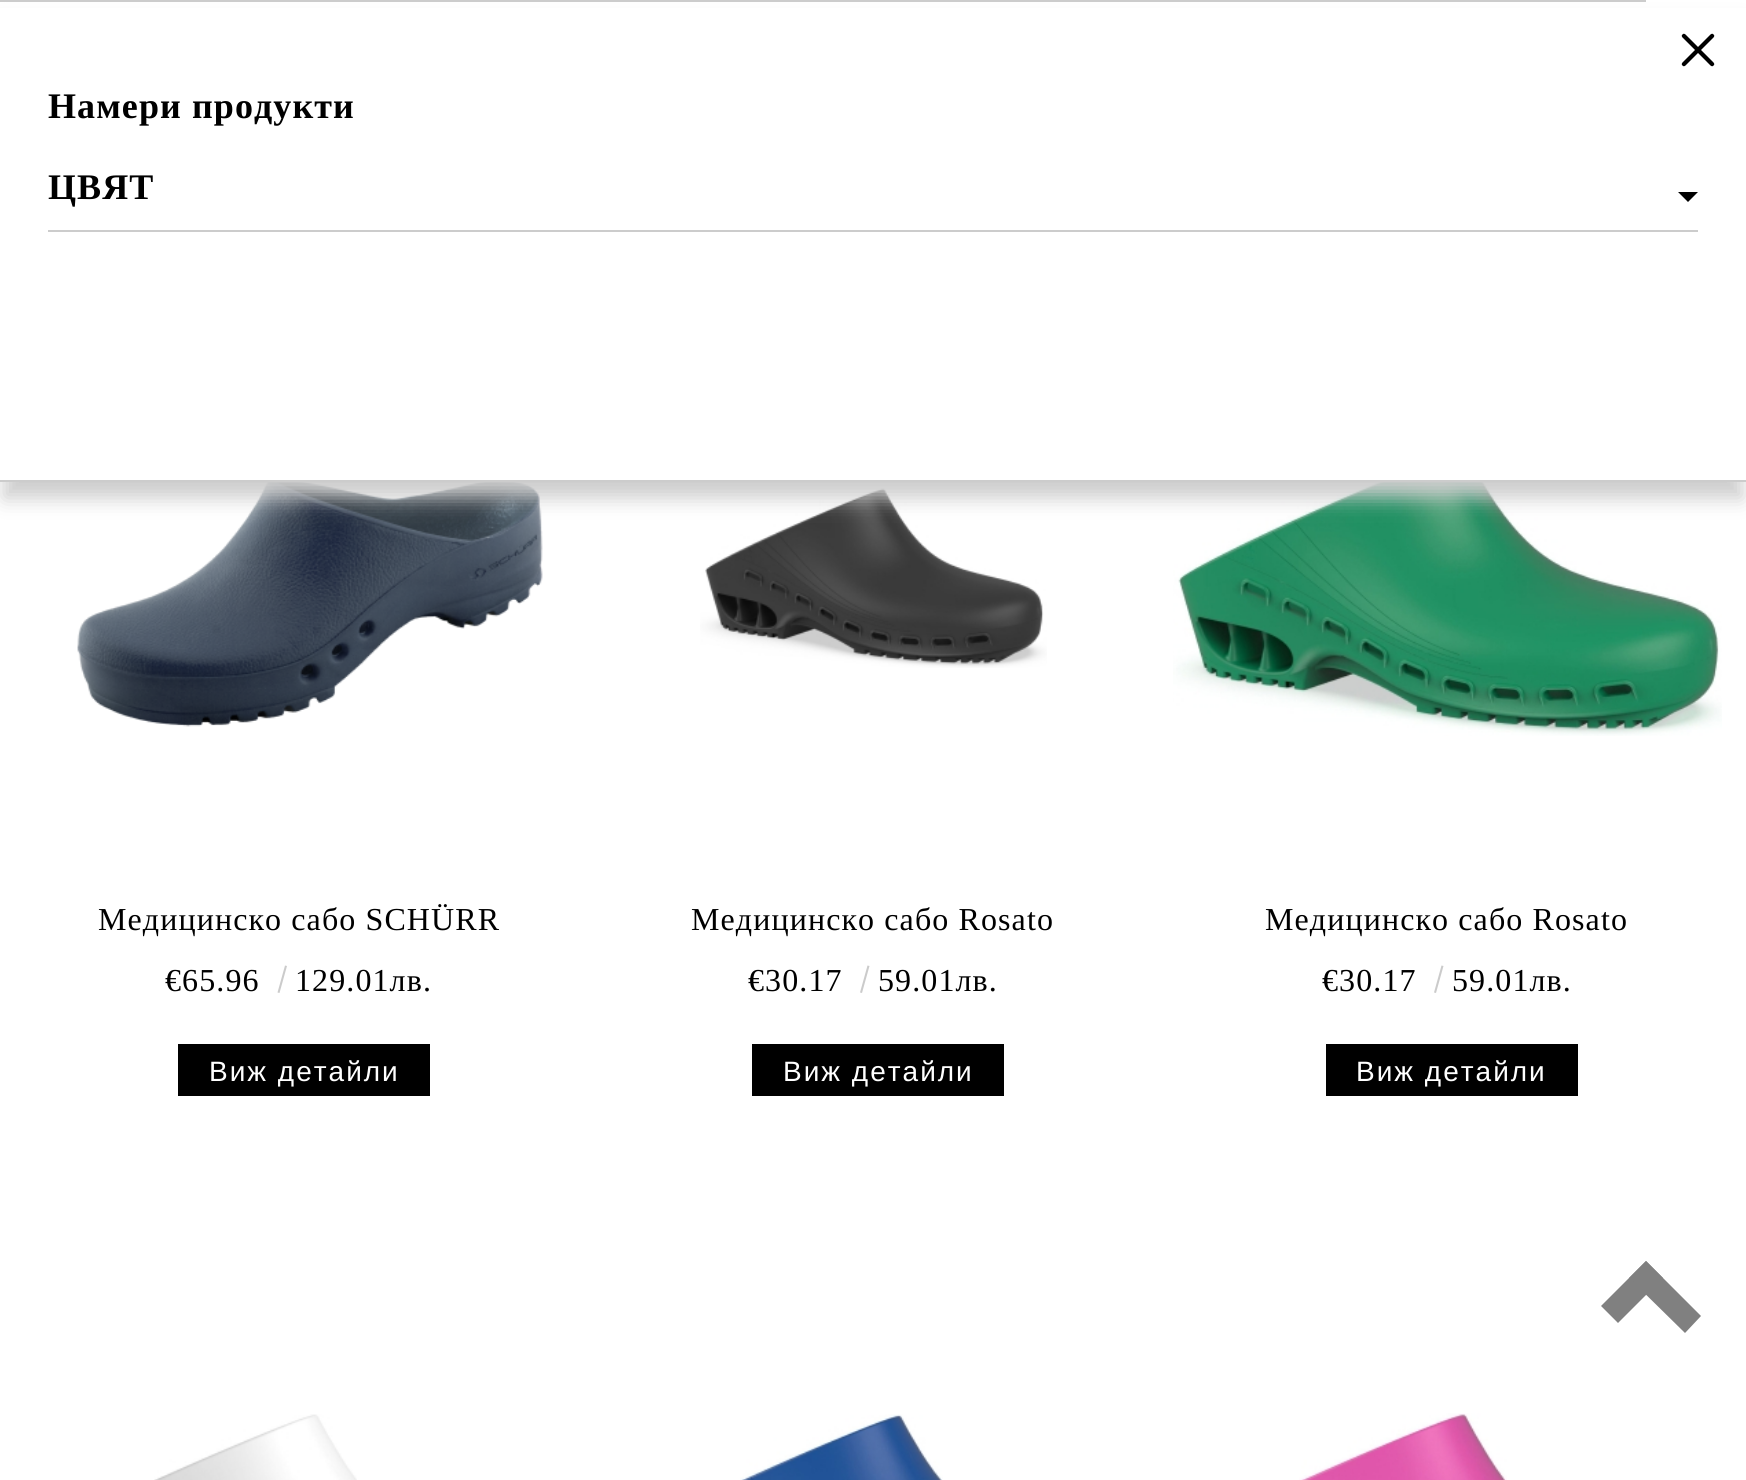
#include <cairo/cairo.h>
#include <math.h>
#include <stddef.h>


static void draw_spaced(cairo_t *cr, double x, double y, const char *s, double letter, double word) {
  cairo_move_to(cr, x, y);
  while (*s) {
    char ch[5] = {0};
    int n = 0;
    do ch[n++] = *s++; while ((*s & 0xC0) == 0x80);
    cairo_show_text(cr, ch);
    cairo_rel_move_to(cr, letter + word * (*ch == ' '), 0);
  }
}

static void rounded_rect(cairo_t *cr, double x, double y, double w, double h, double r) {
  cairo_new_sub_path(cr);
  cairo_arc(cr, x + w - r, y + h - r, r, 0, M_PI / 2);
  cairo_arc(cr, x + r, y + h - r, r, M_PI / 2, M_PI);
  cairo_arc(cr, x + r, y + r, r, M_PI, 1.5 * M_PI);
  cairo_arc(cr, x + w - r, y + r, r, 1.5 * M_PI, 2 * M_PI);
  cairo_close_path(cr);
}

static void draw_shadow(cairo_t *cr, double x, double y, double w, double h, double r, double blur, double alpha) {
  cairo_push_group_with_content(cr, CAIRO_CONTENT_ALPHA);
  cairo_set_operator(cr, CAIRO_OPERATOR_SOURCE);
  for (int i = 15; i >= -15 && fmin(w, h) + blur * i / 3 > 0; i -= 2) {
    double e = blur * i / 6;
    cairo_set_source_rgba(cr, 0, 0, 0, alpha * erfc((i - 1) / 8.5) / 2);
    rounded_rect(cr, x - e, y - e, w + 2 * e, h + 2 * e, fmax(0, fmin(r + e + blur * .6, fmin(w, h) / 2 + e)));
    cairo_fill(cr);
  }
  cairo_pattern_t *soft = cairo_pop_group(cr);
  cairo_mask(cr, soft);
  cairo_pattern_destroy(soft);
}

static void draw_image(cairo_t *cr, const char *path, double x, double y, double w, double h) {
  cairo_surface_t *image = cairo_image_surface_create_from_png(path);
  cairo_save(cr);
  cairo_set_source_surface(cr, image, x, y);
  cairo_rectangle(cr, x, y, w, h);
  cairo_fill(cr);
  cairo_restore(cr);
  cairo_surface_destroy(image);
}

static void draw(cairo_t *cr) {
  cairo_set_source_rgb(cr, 1, 1, 1);
  cairo_paint(cr);
  draw_image(cr, "images/1.png", 77, 482, 466, 245);
  draw_image(cr, "images/2.png", 700, 488, 347, 180);
  draw_image(cr, "images/3.png", 1173, 482, 549, 254);
  cairo_set_source_rgb(cr, 204 / 255.0, 204 / 255.0, 204 / 255.0);
  draw_shadow(cr, 4, 24, 1738, 474, 0, 10, 1);
  cairo_set_source_rgb(cr, 1, 1, 1);
  cairo_rectangle(cr, 0, 8, 1746, 472);
  cairo_fill(cr);
  cairo_set_source_rgb(cr, 204 / 255.0, 204 / 255.0, 204 / 255.0);
  cairo_rectangle(cr, 0, 0, 1646, 2);
  cairo_fill(cr);
  cairo_rectangle(cr, 0, 480, 1746, 2);
  cairo_fill(cr);
  cairo_set_source_rgb(cr, 0, 0, 0);
  cairo_new_path(cr);
  cairo_move_to(cr, 1713.5, 34.5);
  cairo_curve_to(cr, 1714.5, 35, 1714.5, 36.5, 1713.5, 37.5);
  cairo_line_to(cr, 1685.5, 65.5);
  cairo_curve_to(cr, 1684.5, 66.5, 1683, 66.5, 1682.5, 65.5);
  cairo_curve_to(cr, 1681.5, 65, 1681.5, 63.5, 1682.5, 62.5);
  cairo_line_to(cr, 1710.5, 34.5);
  cairo_curve_to(cr, 1711.5, 33.5, 1713, 33.5, 1713.5, 34.5);
  cairo_close_path(cr);
  cairo_fill(cr);
  cairo_new_path(cr);
  cairo_move_to(cr, 1682.5, 34.5);
  cairo_curve_to(cr, 1683, 33.5, 1684.5, 33.5, 1685.5, 34.5);
  cairo_line_to(cr, 1713.5, 62.5);
  cairo_curve_to(cr, 1714.5, 63.5, 1714.5, 65, 1713.5, 65.5);
  cairo_curve_to(cr, 1713, 66.5, 1711.5, 66.5, 1710.5, 65.5);
  cairo_line_to(cr, 1682.5, 37.5);
  cairo_curve_to(cr, 1681.5, 36.5, 1681.5, 35, 1682.5, 34.5);
  cairo_close_path(cr);
  cairo_fill(cr);
  cairo_set_source_rgb(cr, 204 / 255.0, 204 / 255.0, 204 / 255.0);
  cairo_rectangle(cr, 48, 230, 1650, 2);
  cairo_fill(cr);
  cairo_set_source_rgb(cr, 0, 0, 0);
  cairo_new_path(cr);
  cairo_move_to(cr, 1678, 192);
  cairo_line_to(cr, 1698, 192);
  cairo_line_to(cr, 1688, 202);
  cairo_close_path(cr);
  cairo_fill(cr);
  cairo_set_source_rgb(cr, 203 / 255.0, 203 / 255.0, 203 / 255.0);
  cairo_new_path(cr);
  cairo_move_to(cr, 285, 965.5);
  cairo_line_to(cr, 287, 966);
  cairo_line_to(cr, 279.5, 993);
  cairo_line_to(cr, 277.5, 992.5);
  cairo_close_path(cr);
  cairo_fill(cr);
  cairo_set_source_rgb(cr, 0, 0, 0);
  cairo_rectangle(cr, 178, 1044, 252, 52);
  cairo_fill(cr);
  cairo_set_source_rgb(cr, 203 / 255.0, 203 / 255.0, 203 / 255.0);
  cairo_new_path(cr);
  cairo_move_to(cr, 867.5, 965.5);
  cairo_line_to(cr, 869.5, 966);
  cairo_line_to(cr, 862, 993);
  cairo_line_to(cr, 860, 992.5);
  cairo_close_path(cr);
  cairo_fill(cr);
  cairo_set_source_rgb(cr, 0, 0, 0);
  cairo_rectangle(cr, 752, 1044, 252, 52);
  cairo_fill(cr);
  cairo_set_source_rgb(cr, 203 / 255.0, 203 / 255.0, 203 / 255.0);
  cairo_new_path(cr);
  cairo_move_to(cr, 1441.5, 965.5);
  cairo_line_to(cr, 1443.5, 966);
  cairo_line_to(cr, 1436, 993);
  cairo_line_to(cr, 1434, 992.5);
  cairo_close_path(cr);
  cairo_fill(cr);
  cairo_set_source_rgb(cr, 0, 0, 0);
  cairo_rectangle(cr, 1326, 1044, 252, 52);
  cairo_fill(cr);
  draw_image(cr, "images/4.png", 154, 1414, 203, 66);
  draw_image(cr, "images/5.png", 740, 1414, 203, 66);
  draw_image(cr, "images/6.png", 1299, 1413, 208, 67);
  cairo_set_source_rgb(cr, 128 / 255.0, 128 / 255.0, 128 / 255.0);
  cairo_new_path(cr);
  cairo_move_to(cr, 1618, 1323);
  cairo_line_to(cr, 1601, 1306);
  cairo_line_to(cr, 1646, 1261);
  cairo_line_to(cr, 1663, 1278);
  cairo_close_path(cr);
  cairo_fill(cr);
  cairo_new_path(cr);
  cairo_move_to(cr, 1685, 1333);
  cairo_line_to(cr, 1629, 1278);
  cairo_line_to(cr, 1646, 1261);
  cairo_line_to(cr, 1701, 1316);
  cairo_close_path(cr);
  cairo_fill(cr);
  cairo_select_font_face(cr, "Liberation Serif", CAIRO_FONT_SLANT_NORMAL, CAIRO_FONT_WEIGHT_BOLD);
  cairo_set_font_size(cr, 36);
  cairo_set_source_rgb(cr, 0, 0, 0);
  draw_spaced(cr, 48, 118, "Намери продукти", 1.1, 0);
  draw_spaced(cr, 48, 199, "ЦВЯТ", 1.1, 0);
  cairo_select_font_face(cr, "Liberation Serif", CAIRO_FONT_SLANT_NORMAL, CAIRO_FONT_WEIGHT_NORMAL);
  cairo_set_font_size(cr, 32);
  draw_spaced(cr, 98, 930, "Медицинско сабо SCHÜRR", 1.1, 0);
  draw_spaced(cr, 165, 991, "€65.96", 1.1, 0);
  draw_spaced(cr, 295, 991, "129.01лв.", 1.1, 0);
  cairo_select_font_face(cr, "Liberation Sans", CAIRO_FONT_SLANT_NORMAL, CAIRO_FONT_WEIGHT_NORMAL);
  cairo_set_font_size(cr, 28);
  cairo_set_source_rgb(cr, 1, 1, 1);
  draw_spaced(cr, 209, 1081, "Виж детайли", 2, 0);
  cairo_select_font_face(cr, "Liberation Serif", CAIRO_FONT_SLANT_NORMAL, CAIRO_FONT_WEIGHT_NORMAL);
  cairo_set_font_size(cr, 32);
  cairo_set_source_rgb(cr, 0, 0, 0);
  draw_spaced(cr, 691, 930, "Медицинско сабо Rosato", 1.1, 0);
  draw_spaced(cr, 748, 991, "€30.17", 1.1, 0);
  draw_spaced(cr, 878, 991, "59.01лв.", 1.1, 0);
  cairo_select_font_face(cr, "Liberation Sans", CAIRO_FONT_SLANT_NORMAL, CAIRO_FONT_WEIGHT_NORMAL);
  cairo_set_font_size(cr, 28);
  cairo_set_source_rgb(cr, 1, 1, 1);
  draw_spaced(cr, 783, 1081, "Виж детайли", 2, 0);
  cairo_select_font_face(cr, "Liberation Serif", CAIRO_FONT_SLANT_NORMAL, CAIRO_FONT_WEIGHT_NORMAL);
  cairo_set_font_size(cr, 32);
  cairo_set_source_rgb(cr, 0, 0, 0);
  draw_spaced(cr, 1265, 930, "Медицинско сабо Rosato", 1.1, 0);
  draw_spaced(cr, 1322, 991, "€30.17", 1.1, 0);
  draw_spaced(cr, 1452, 991, "59.01лв.", 1.1, 0);
  cairo_select_font_face(cr, "Liberation Sans", CAIRO_FONT_SLANT_NORMAL, CAIRO_FONT_WEIGHT_NORMAL);
  cairo_set_font_size(cr, 28);
  cairo_set_source_rgb(cr, 1, 1, 1);
  draw_spaced(cr, 1356, 1081, "Виж детайли", 2, 0);
}

int main(void) {
  cairo_surface_t *surface = cairo_image_surface_create(CAIRO_FORMAT_RGB24, 1746, 1480);
  cairo_t *cr = cairo_create(surface);
  cairo_font_options_t *options = cairo_font_options_create();
  cairo_font_options_set_hint_metrics(options, CAIRO_HINT_METRICS_OFF);
  cairo_font_options_set_hint_style(options, CAIRO_HINT_STYLE_NONE);
  cairo_set_font_options(cr, options);
  cairo_set_miter_limit(cr, 4);
  draw(cr);
  cairo_surface_write_to_png(surface, "out.png");
  cairo_font_options_destroy(options);
  cairo_destroy(cr);
  cairo_surface_destroy(surface);
  return 0;
}
